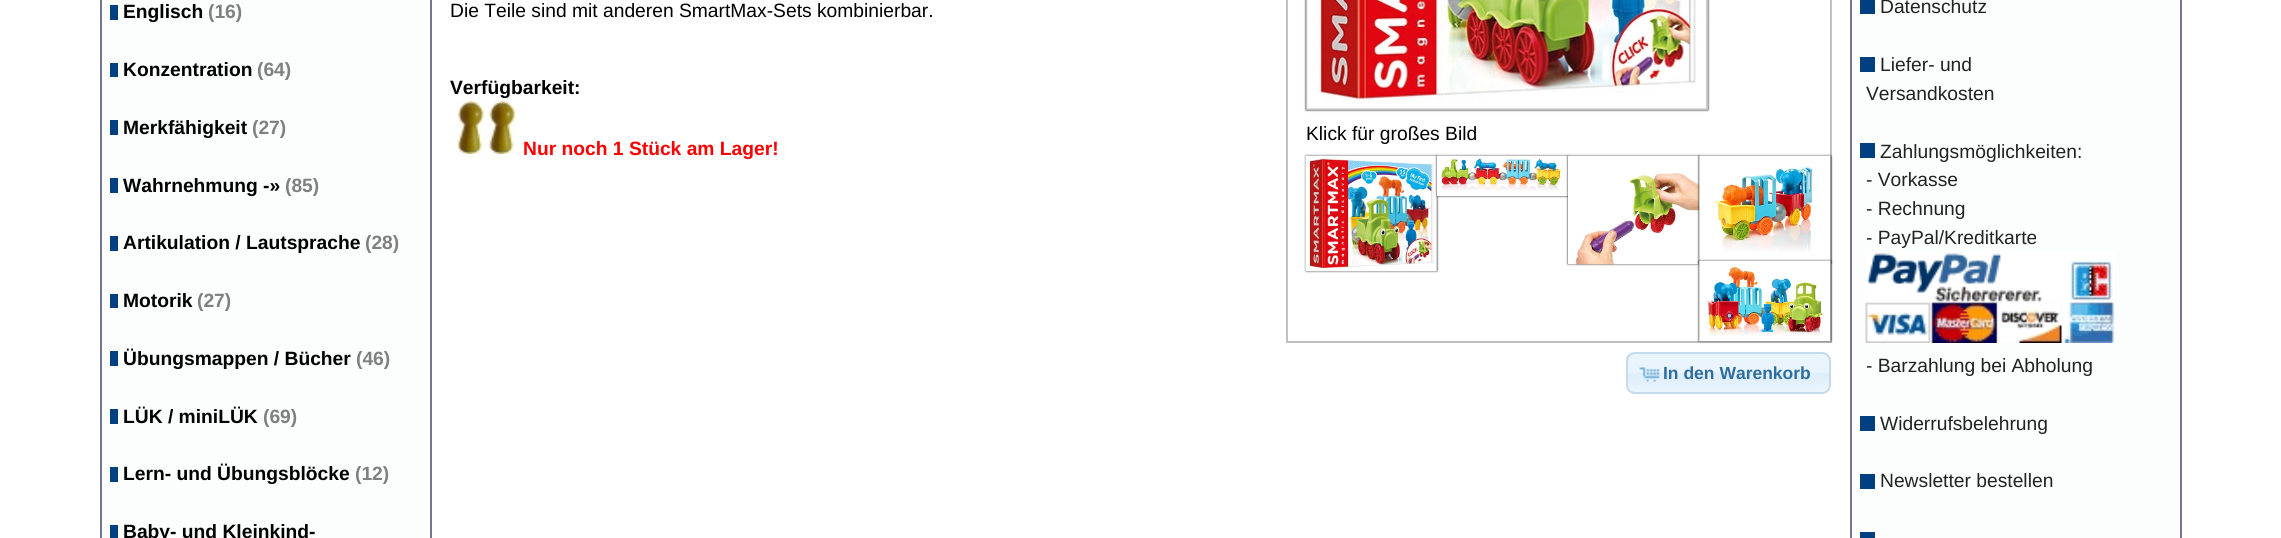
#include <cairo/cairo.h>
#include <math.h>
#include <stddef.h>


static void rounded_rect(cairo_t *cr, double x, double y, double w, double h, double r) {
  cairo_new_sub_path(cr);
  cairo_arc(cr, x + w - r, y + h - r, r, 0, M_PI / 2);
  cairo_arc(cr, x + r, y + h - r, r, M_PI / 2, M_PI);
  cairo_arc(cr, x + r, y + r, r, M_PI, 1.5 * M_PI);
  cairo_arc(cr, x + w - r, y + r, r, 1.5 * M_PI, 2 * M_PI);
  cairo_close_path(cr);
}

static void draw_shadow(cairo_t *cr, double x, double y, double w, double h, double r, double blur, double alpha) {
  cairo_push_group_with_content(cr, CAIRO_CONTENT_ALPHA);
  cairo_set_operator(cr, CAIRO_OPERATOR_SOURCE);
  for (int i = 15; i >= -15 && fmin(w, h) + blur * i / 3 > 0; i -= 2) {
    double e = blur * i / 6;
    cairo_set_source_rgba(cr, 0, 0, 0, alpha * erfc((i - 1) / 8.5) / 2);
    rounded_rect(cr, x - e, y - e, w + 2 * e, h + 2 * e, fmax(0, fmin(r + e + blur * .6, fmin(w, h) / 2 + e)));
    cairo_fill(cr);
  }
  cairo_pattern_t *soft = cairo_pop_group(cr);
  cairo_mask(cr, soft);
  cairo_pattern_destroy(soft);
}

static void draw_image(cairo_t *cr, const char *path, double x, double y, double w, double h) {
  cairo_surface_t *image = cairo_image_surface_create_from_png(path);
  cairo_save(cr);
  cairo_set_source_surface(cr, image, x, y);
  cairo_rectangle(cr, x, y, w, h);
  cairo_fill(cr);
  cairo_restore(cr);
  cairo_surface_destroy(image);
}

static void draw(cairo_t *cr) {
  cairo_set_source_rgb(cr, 1, 1, 1);
  cairo_paint(cr);
  cairo_set_source_rgb(cr, 252 / 255.0, 253 / 255.0, 253 / 255.0);
  cairo_rectangle(cr, 101, -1, 330, 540);
  cairo_fill_preserve(cr);
  cairo_set_source_rgb(cr, 114 / 255.0, 118 / 255.0, 143 / 255.0);
  cairo_stroke(cr);
  cairo_set_source_rgb(cr, 0, 64 / 255.0, 128 / 255.0);
  cairo_rectangle(cr, 110, 5, 8, 15);
  cairo_fill(cr);
  cairo_rectangle(cr, 110, 63, 8, 14);
  cairo_fill(cr);
  cairo_rectangle(cr, 110, 120, 8, 15);
  cairo_fill(cr);
  cairo_rectangle(cr, 110, 178, 8, 15);
  cairo_fill(cr);
  cairo_rectangle(cr, 110, 236, 8, 15);
  cairo_fill(cr);
  cairo_rectangle(cr, 110, 294, 8, 14);
  cairo_fill(cr);
  cairo_rectangle(cr, 110, 351, 8, 15);
  cairo_fill(cr);
  cairo_rectangle(cr, 110, 409, 8, 15);
  cairo_fill(cr);
  cairo_rectangle(cr, 110, 467, 8, 15);
  cairo_fill(cr);
  cairo_rectangle(cr, 110, 525, 8, 13);
  cairo_fill(cr);
  draw_image(cr, "images/1.png", 456, 101, 61, 53);
  cairo_rectangle(cr, 1287, -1, 544, 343);
  cairo_set_source_rgb(cr, 192 / 255.0, 192 / 255.0, 192 / 255.0);
  cairo_stroke(cr);
  cairo_set_source_rgb(cr, 0, 0, 0);
  draw_shadow(cr, 1306, -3, 402, 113, 0, 1, 1);
  cairo_rectangle(cr, 1307, -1, 400, 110);
  cairo_set_source_rgb(cr, 192 / 255.0, 192 / 255.0, 192 / 255.0);
  cairo_stroke(cr);
  draw_image(cr, "images/2.png", 1307, 0, 400, 109);
  cairo_set_source_rgb(cr, 0, 0, 0);
  draw_shadow(cr, 1306, 156, 131, 115, 0, 1, 1);
  draw_image(cr, "images/3.png", 1305, 155, 132, 117);
  draw_shadow(cr, 1437, 156, 131, 40, 0, 1, 1);
  draw_image(cr, "images/4.png", 1436, 155, 132, 41);
  draw_shadow(cr, 1568, 156, 131, 108, 0, 1, 1);
  draw_image(cr, "images/5.png", 1568, 155, 132, 110);
  draw_shadow(cr, 1699, 156, 132, 107, 0, 1, 1);
  draw_image(cr, "images/6.png", 1699, 155, 132, 108);
  draw_shadow(cr, 1699, 261, 132, 80, 0, 1, 1);
  draw_image(cr, "images/7.png", 1699, 260, 132, 82);
  draw_image(cr, "images/8.png", 1626, 352, 204, 42);
  rounded_rect(cr, 1627, 353, 203, 40, 8);
  cairo_set_source_rgb(cr, 197 / 255.0, 219 / 255.0, 236 / 255.0);
  cairo_stroke(cr);
  draw_image(cr, "images/9.png", 1639, 367, 21, 15);
  cairo_set_source_rgb(cr, 252 / 255.0, 253 / 255.0, 253 / 255.0);
  cairo_rectangle(cr, 1851, -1, 330, 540);
  cairo_fill_preserve(cr);
  cairo_set_source_rgb(cr, 114 / 255.0, 118 / 255.0, 143 / 255.0);
  cairo_stroke(cr);
  cairo_set_source_rgb(cr, 0, 64 / 255.0, 128 / 255.0);
  cairo_rectangle(cr, 1860, 0, 15, 14);
  cairo_fill(cr);
  cairo_rectangle(cr, 1860, 57, 15, 15);
  cairo_fill(cr);
  cairo_rectangle(cr, 1860, 143, 15, 15);
  cairo_fill(cr);
  draw_image(cr, "images/10.png", 1865, 253, 249, 90);
  cairo_rectangle(cr, 1860, 416, 15, 15);
  cairo_fill(cr);
  cairo_rectangle(cr, 1860, 474, 15, 15);
  cairo_fill(cr);
  cairo_rectangle(cr, 1860, 532, 15, 6);
  cairo_fill(cr);
  cairo_select_font_face(cr, "Liberation Sans", CAIRO_FONT_SLANT_NORMAL, CAIRO_FONT_WEIGHT_BOLD);
  cairo_set_font_size(cr, 19.25);
  cairo_set_source_rgb(cr, 0, 0, 0);
  cairo_move_to(cr, 123, 18);
  cairo_show_text(cr, "Englisch");
  cairo_set_source_rgb(cr, 128 / 255.0, 128 / 255.0, 128 / 255.0);
  cairo_move_to(cr, 208, 18);
  cairo_show_text(cr, "(16)");
  cairo_set_source_rgb(cr, 0, 0, 0);
  cairo_move_to(cr, 123, 76);
  cairo_show_text(cr, "Konzentration");
  cairo_set_source_rgb(cr, 128 / 255.0, 128 / 255.0, 128 / 255.0);
  cairo_move_to(cr, 257, 76);
  cairo_show_text(cr, "(64)");
  cairo_set_source_rgb(cr, 0, 0, 0);
  cairo_move_to(cr, 123, 134);
  cairo_show_text(cr, "Merkfähigkeit");
  cairo_set_source_rgb(cr, 128 / 255.0, 128 / 255.0, 128 / 255.0);
  cairo_move_to(cr, 252, 134);
  cairo_show_text(cr, "(27)");
  cairo_set_source_rgb(cr, 0, 0, 0);
  cairo_move_to(cr, 123, 192);
  cairo_show_text(cr, "Wahrnehmung -»");
  cairo_set_source_rgb(cr, 128 / 255.0, 128 / 255.0, 128 / 255.0);
  cairo_move_to(cr, 285, 192);
  cairo_show_text(cr, "(85)");
  cairo_set_source_rgb(cr, 0, 0, 0);
  cairo_move_to(cr, 123, 249);
  cairo_show_text(cr, "Artikulation / Lautsprache");
  cairo_set_source_rgb(cr, 128 / 255.0, 128 / 255.0, 128 / 255.0);
  cairo_move_to(cr, 365, 249);
  cairo_show_text(cr, "(28)");
  cairo_set_source_rgb(cr, 0, 0, 0);
  cairo_move_to(cr, 123, 307);
  cairo_show_text(cr, "Motorik");
  cairo_set_source_rgb(cr, 128 / 255.0, 128 / 255.0, 128 / 255.0);
  cairo_move_to(cr, 197, 307);
  cairo_show_text(cr, "(27)");
  cairo_set_source_rgb(cr, 0, 0, 0);
  cairo_move_to(cr, 123, 365);
  cairo_show_text(cr, "Übungsmappen / Bücher");
  cairo_set_source_rgb(cr, 128 / 255.0, 128 / 255.0, 128 / 255.0);
  cairo_move_to(cr, 356, 365);
  cairo_show_text(cr, "(46)");
  cairo_set_source_rgb(cr, 0, 0, 0);
  cairo_move_to(cr, 123, 423);
  cairo_show_text(cr, "LÜK / miniLÜK");
  cairo_set_source_rgb(cr, 128 / 255.0, 128 / 255.0, 128 / 255.0);
  cairo_move_to(cr, 263, 423);
  cairo_show_text(cr, "(69)");
  cairo_set_source_rgb(cr, 0, 0, 0);
  cairo_move_to(cr, 123, 480);
  cairo_show_text(cr, "Lern- und Übungsblöcke");
  cairo_set_source_rgb(cr, 128 / 255.0, 128 / 255.0, 128 / 255.0);
  cairo_move_to(cr, 355, 480);
  cairo_show_text(cr, "(12)");
  cairo_set_source_rgb(cr, 0, 0, 0);
  cairo_move_to(cr, 123, 538);
  cairo_show_text(cr, "Baby- und Kleinkind-");
  cairo_select_font_face(cr, "Liberation Sans", CAIRO_FONT_SLANT_NORMAL, CAIRO_FONT_WEIGHT_NORMAL);
  cairo_move_to(cr, 450, 17);
  cairo_show_text(cr, "Die Teile sind mit anderen SmartMax-Sets kombinierbar.");
  cairo_select_font_face(cr, "Liberation Sans", CAIRO_FONT_SLANT_NORMAL, CAIRO_FONT_WEIGHT_BOLD);
  cairo_move_to(cr, 450, 94);
  cairo_show_text(cr, "Verfügbarkeit:");
  cairo_set_source_rgb(cr, 1, 0, 0);
  cairo_move_to(cr, 523, 155);
  cairo_show_text(cr, "Nur noch 1 Stück am Lager!");
  cairo_select_font_face(cr, "Liberation Sans", CAIRO_FONT_SLANT_NORMAL, CAIRO_FONT_WEIGHT_NORMAL);
  cairo_set_source_rgb(cr, 0, 0, 0);
  cairo_move_to(cr, 1306, 140);
  cairo_show_text(cr, "Klick für großes Bild");
  cairo_select_font_face(cr, "Liberation Sans", CAIRO_FONT_SLANT_NORMAL, CAIRO_FONT_WEIGHT_BOLD);
  cairo_set_font_size(cr, 17.5);
  cairo_set_source_rgb(cr, 46 / 255.0, 110 / 255.0, 158 / 255.0);
  cairo_move_to(cr, 1663, 379);
  cairo_show_text(cr, "In den Warenkorb");
  cairo_select_font_face(cr, "Liberation Sans", CAIRO_FONT_SLANT_NORMAL, CAIRO_FONT_WEIGHT_NORMAL);
  cairo_set_font_size(cr, 19.25);
  cairo_set_source_rgb(cr, 34 / 255.0, 34 / 255.0, 34 / 255.0);
  cairo_move_to(cr, 1880, 13);
  cairo_show_text(cr, "Datenschutz");
  cairo_move_to(cr, 1880, 71);
  cairo_show_text(cr, "Liefer- und");
  cairo_move_to(cr, 1866, 100);
  cairo_show_text(cr, "Versandkosten");
  cairo_move_to(cr, 1880, 158);
  cairo_show_text(cr, "Zahlungsmöglichkeiten:");
  cairo_move_to(cr, 1866, 186);
  cairo_show_text(cr, "- Vorkasse");
  cairo_move_to(cr, 1866, 215);
  cairo_show_text(cr, "- Rechnung");
  cairo_move_to(cr, 1866, 244);
  cairo_show_text(cr, "- PayPal/Kreditkarte");
  cairo_move_to(cr, 1866, 372);
  cairo_show_text(cr, "- Barzahlung bei Abholung");
  cairo_move_to(cr, 1880, 430);
  cairo_show_text(cr, "Widerrufsbelehrung");
  cairo_move_to(cr, 1880, 487);
  cairo_show_text(cr, "Newsletter bestellen");
}

int main(void) {
  cairo_surface_t *surface = cairo_image_surface_create(CAIRO_FORMAT_RGB24, 2281, 538);
  cairo_t *cr = cairo_create(surface);
  cairo_font_options_t *options = cairo_font_options_create();
  cairo_font_options_set_hint_metrics(options, CAIRO_HINT_METRICS_OFF);
  cairo_font_options_set_hint_style(options, CAIRO_HINT_STYLE_NONE);
  cairo_set_font_options(cr, options);
  cairo_set_miter_limit(cr, 4);
  draw(cr);
  cairo_surface_write_to_png(surface, "out.png");
  cairo_font_options_destroy(options);
  cairo_destroy(cr);
  cairo_surface_destroy(surface);
  return 0;
}
